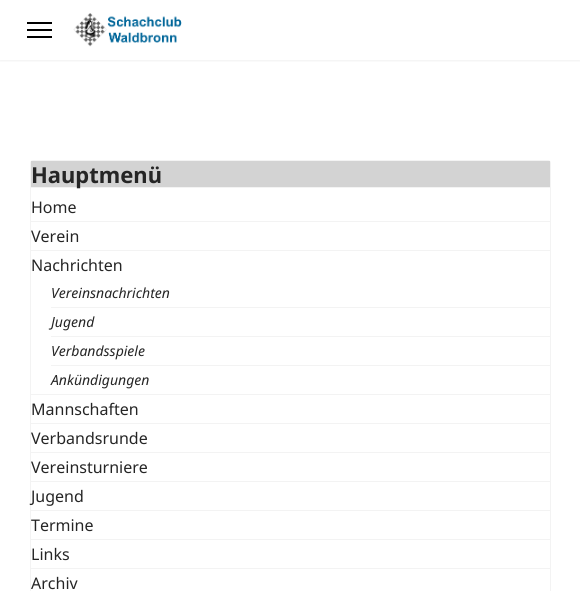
#include <cairo/cairo.h>
#include <math.h>
#include <stddef.h>


static void rounded_rect(cairo_t *cr, double x, double y, double w, double h, double r) {
  cairo_new_sub_path(cr);
  cairo_arc(cr, x + w - r, y + h - r, r, 0, M_PI / 2);
  cairo_arc(cr, x + r, y + h - r, r, M_PI / 2, M_PI);
  cairo_arc(cr, x + r, y + r, r, M_PI, 1.5 * M_PI);
  cairo_arc(cr, x + w - r, y + r, r, 1.5 * M_PI, 2 * M_PI);
  cairo_close_path(cr);
}

static void draw_shadow(cairo_t *cr, double x, double y, double w, double h, double r, double blur, double alpha) {
  cairo_push_group_with_content(cr, CAIRO_CONTENT_ALPHA);
  cairo_set_operator(cr, CAIRO_OPERATOR_SOURCE);
  for (int i = 15; i >= -15 && fmin(w, h) + blur * i / 3 > 0; i -= 2) {
    double e = blur * i / 6;
    cairo_set_source_rgba(cr, 0, 0, 0, alpha * erfc((i - 1) / 8.5) / 2);
    rounded_rect(cr, x - e, y - e, w + 2 * e, h + 2 * e, fmax(0, fmin(r + e + blur * .6, fmin(w, h) / 2 + e)));
    cairo_fill(cr);
  }
  cairo_pattern_t *soft = cairo_pop_group(cr);
  cairo_mask(cr, soft);
  cairo_pattern_destroy(soft);
}

static void draw_image(cairo_t *cr, const char *path, double x, double y, double w, double h) {
  cairo_surface_t *image = cairo_image_surface_create_from_png(path);
  cairo_save(cr);
  cairo_set_source_surface(cr, image, x, y);
  cairo_rectangle(cr, x, y, w, h);
  cairo_fill(cr);
  cairo_restore(cr);
  cairo_surface_destroy(image);
}

static void draw(cairo_t *cr) {
  cairo_set_source_rgb(cr, 1, 1, 1);
  cairo_paint(cr);
  cairo_save(cr);
  cairo_rectangle(cr, 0, 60, 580, 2);
  cairo_clip(cr);
  cairo_set_source_rgb(cr, 0, 0, 0);
  draw_shadow(cr, 0, 0, 580, 60, 0, 2, 0.1);
  cairo_restore(cr);
  cairo_set_source_rgb(cr, 0, 0, 0);
  cairo_rectangle(cr, 27, 22, 25, 2);
  cairo_fill(cr);
  cairo_rectangle(cr, 27, 29, 25, 2);
  cairo_fill(cr);
  cairo_rectangle(cr, 27, 36, 25, 2);
  cairo_fill(cr);
  draw_image(cr, "images/1.png", 73, 13, 109, 34);
  rounded_rect(cr, 30.5, 160.5, 520, 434, 2.5);
  cairo_set_source_rgb(cr, 243 / 255.0, 243 / 255.0, 243 / 255.0);
  cairo_set_line_width(cr, 1);
  cairo_stroke(cr);
  cairo_set_source_rgb(cr, 211 / 255.0, 211 / 255.0, 211 / 255.0);
  cairo_rectangle(cr, 31, 161, 519, 26);
  cairo_fill(cr);
  cairo_set_source_rgb(cr, 243 / 255.0, 243 / 255.0, 243 / 255.0);
  cairo_rectangle(cr, 31, 187, 519, 1);
  cairo_fill(cr);
  cairo_rectangle(cr, 31, 221, 519, 1);
  cairo_fill(cr);
  cairo_rectangle(cr, 31, 250, 519, 1);
  cairo_fill(cr);
  cairo_rectangle(cr, 31, 394, 519, 1);
  cairo_fill(cr);
  cairo_rectangle(cr, 51, 307, 499, 1);
  cairo_fill(cr);
  cairo_rectangle(cr, 51, 336, 499, 1);
  cairo_fill(cr);
  cairo_rectangle(cr, 51, 365, 499, 1);
  cairo_fill(cr);
  cairo_rectangle(cr, 31, 423, 519, 1);
  cairo_fill(cr);
  cairo_rectangle(cr, 31, 452, 519, 1);
  cairo_fill(cr);
  cairo_rectangle(cr, 31, 481, 519, 1);
  cairo_fill(cr);
  cairo_rectangle(cr, 31, 510, 519, 1);
  cairo_fill(cr);
  cairo_rectangle(cr, 31, 539, 519, 1);
  cairo_fill(cr);
  cairo_rectangle(cr, 31, 568, 519, 1);
  cairo_fill(cr);
  cairo_select_font_face(cr, "Noto Sans", CAIRO_FONT_SLANT_NORMAL, CAIRO_FONT_WEIGHT_BOLD);
  cairo_set_font_size(cr, 22);
  cairo_set_source_rgb(cr, 37 / 255.0, 37 / 255.0, 37 / 255.0);
  cairo_move_to(cr, 31, 183);
  cairo_show_text(cr, "Hauptmenü");
  cairo_select_font_face(cr, "Noto Sans", CAIRO_FONT_SLANT_NORMAL, CAIRO_FONT_WEIGHT_NORMAL);
  cairo_set_font_size(cr, 16);
  cairo_move_to(cr, 31, 213);
  cairo_show_text(cr, "Home");
  cairo_move_to(cr, 31, 242);
  cairo_show_text(cr, "Verein");
  cairo_move_to(cr, 31, 271);
  cairo_show_text(cr, "Nachrichten");
  cairo_select_font_face(cr, "Noto Sans", CAIRO_FONT_SLANT_ITALIC, CAIRO_FONT_WEIGHT_NORMAL);
  cairo_set_font_size(cr, 14);
  cairo_move_to(cr, 51, 298);
  cairo_show_text(cr, "Vereinsnachrichten");
  cairo_move_to(cr, 51, 327);
  cairo_show_text(cr, "Jugend");
  cairo_move_to(cr, 51, 356);
  cairo_show_text(cr, "Verbandsspiele");
  cairo_move_to(cr, 51, 385);
  cairo_show_text(cr, "Ankündigungen");
  cairo_select_font_face(cr, "Noto Sans", CAIRO_FONT_SLANT_NORMAL, CAIRO_FONT_WEIGHT_NORMAL);
  cairo_set_font_size(cr, 16);
  cairo_move_to(cr, 31, 415);
  cairo_show_text(cr, "Mannschaften");
  cairo_move_to(cr, 31, 444);
  cairo_show_text(cr, "Verbandsrunde");
  cairo_move_to(cr, 31, 473);
  cairo_show_text(cr, "Vereinsturniere");
  cairo_move_to(cr, 31, 502);
  cairo_show_text(cr, "Jugend");
  cairo_move_to(cr, 31, 531);
  cairo_show_text(cr, "Termine");
  cairo_move_to(cr, 31, 560);
  cairo_show_text(cr, "Links");
  cairo_move_to(cr, 31, 589);
  cairo_show_text(cr, "Archiv");
}

int main(void) {
  cairo_surface_t *surface = cairo_image_surface_create(CAIRO_FORMAT_RGB24, 580, 591);
  cairo_t *cr = cairo_create(surface);
  cairo_font_options_t *options = cairo_font_options_create();
  cairo_font_options_set_hint_metrics(options, CAIRO_HINT_METRICS_OFF);
  cairo_font_options_set_hint_style(options, CAIRO_HINT_STYLE_NONE);
  cairo_set_font_options(cr, options);
  cairo_set_miter_limit(cr, 4);
  draw(cr);
  cairo_surface_write_to_png(surface, "out.png");
  cairo_font_options_destroy(options);
  cairo_destroy(cr);
  cairo_surface_destroy(surface);
  return 0;
}
